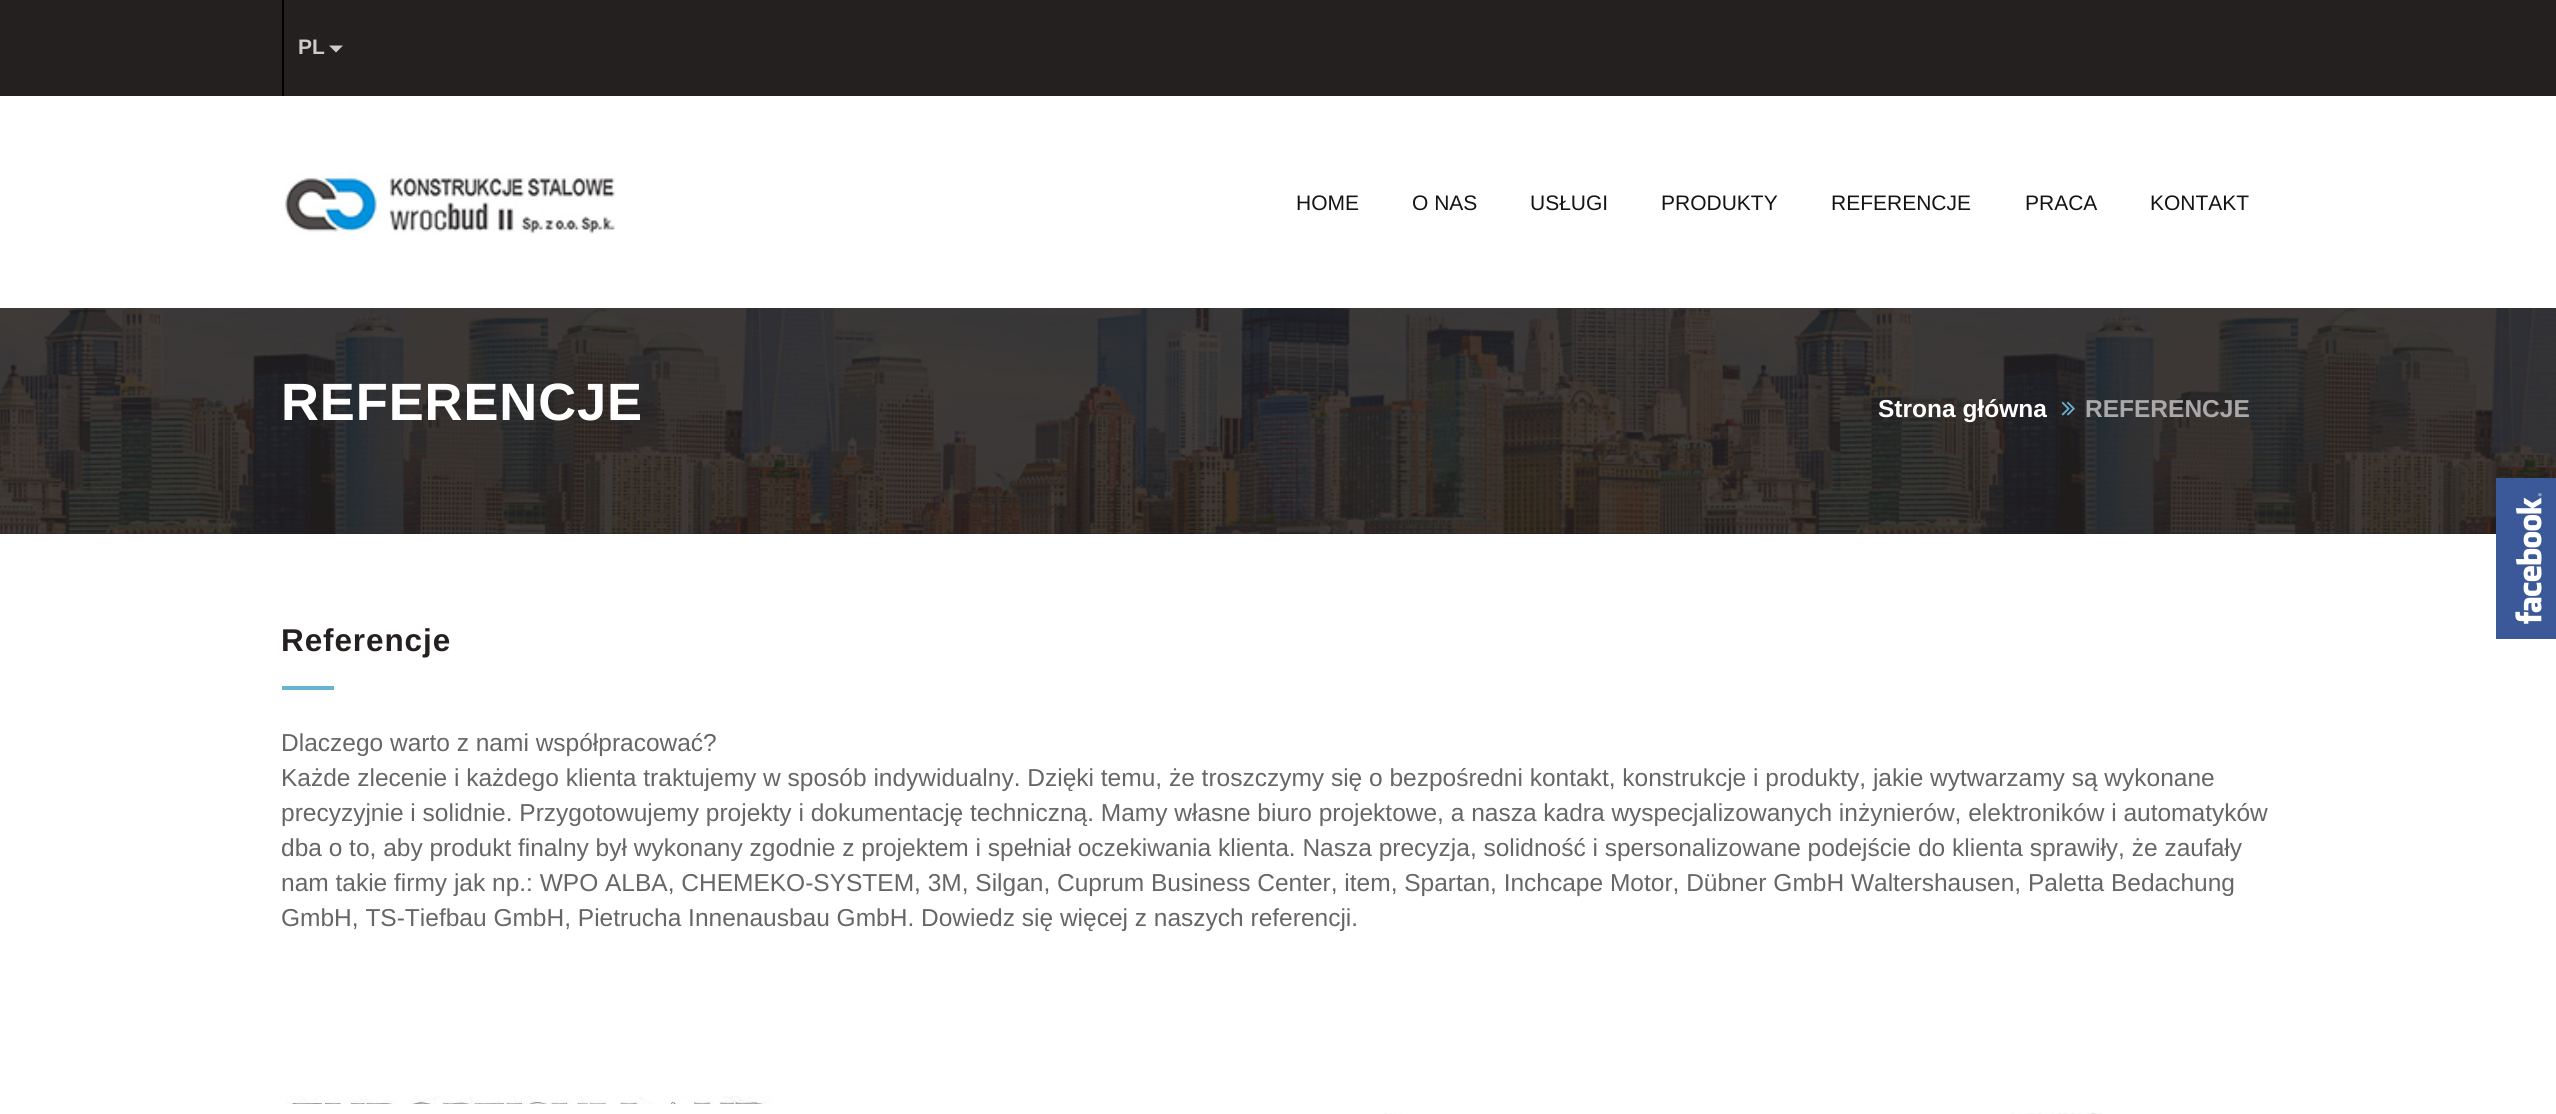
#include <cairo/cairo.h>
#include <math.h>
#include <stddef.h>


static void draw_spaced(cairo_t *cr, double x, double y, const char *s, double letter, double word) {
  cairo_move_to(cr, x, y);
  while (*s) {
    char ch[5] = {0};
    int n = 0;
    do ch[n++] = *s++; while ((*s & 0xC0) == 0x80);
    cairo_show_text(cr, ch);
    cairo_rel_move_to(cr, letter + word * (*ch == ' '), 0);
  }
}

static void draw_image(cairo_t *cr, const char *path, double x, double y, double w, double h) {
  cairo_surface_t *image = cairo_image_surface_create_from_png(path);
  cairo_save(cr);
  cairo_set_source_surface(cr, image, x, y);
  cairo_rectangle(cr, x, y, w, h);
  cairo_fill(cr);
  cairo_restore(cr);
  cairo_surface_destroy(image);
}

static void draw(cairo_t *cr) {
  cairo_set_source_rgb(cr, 1, 1, 1);
  cairo_paint(cr);
  cairo_set_source_rgb(cr, 36 / 255.0, 32 / 255.0, 31 / 255.0);
  cairo_rectangle(cr, 0, 0, 2556, 96);
  cairo_fill(cr);
  cairo_set_source_rgb(cr, 0, 0, 0);
  cairo_rectangle(cr, 282, 0, 2, 96);
  cairo_fill(cr);
  cairo_set_source_rgb(cr, 204 / 255.0, 204 / 255.0, 204 / 255.0);
  cairo_new_path(cr);
  cairo_move_to(cr, 329, 45.5);
  cairo_line_to(cr, 343, 45.5);
  cairo_line_to(cr, 336, 52.5);
  cairo_close_path(cr);
  cairo_fill(cr);
  draw_image(cr, "images/1.png", 284, 172, 331, 62);
  cairo_set_source_rgb(cr, 36 / 255.0, 32 / 255.0, 31 / 255.0);
  cairo_rectangle(cr, 0, 308, 2556, 226);
  cairo_fill(cr);
  draw_image(cr, "images/2.png", 0, 308, 2556, 226);
  draw_image(cr, "images/3.png", 2061, 401, 14, 15);
  draw_image(cr, "images/4.png", 2496, 478, 60, 161);
  cairo_set_source_rgb(cr, 104 / 255.0, 177 / 255.0, 210 / 255.0);
  cairo_rectangle(cr, 282, 686, 52, 4);
  cairo_fill(cr);
  draw_image(cr, "images/5.png", 286, 1096, 486, 8);
  draw_image(cr, "images/6.png", 1384, 1113, 18, 1);
  draw_image(cr, "images/7.png", 2011, 1113, 91, 1);
  cairo_select_font_face(cr, "Liberation Sans", CAIRO_FONT_SLANT_NORMAL, CAIRO_FONT_WEIGHT_BOLD);
  cairo_set_font_size(cr, 21);
  cairo_set_source_rgb(cr, 204 / 255.0, 204 / 255.0, 204 / 255.0);
  cairo_move_to(cr, 298, 54);
  cairo_show_text(cr, "PL");
  cairo_select_font_face(cr, "Liberation Sans", CAIRO_FONT_SLANT_NORMAL, CAIRO_FONT_WEIGHT_NORMAL);
  cairo_set_source_rgb(cr, 20 / 255.0, 20 / 255.0, 20 / 255.0);
  cairo_move_to(cr, 1296, 210);
  cairo_show_text(cr, "HOME");
  cairo_move_to(cr, 1412, 210);
  cairo_show_text(cr, "O NAS");
  cairo_move_to(cr, 1530, 210);
  cairo_show_text(cr, "USŁUGI");
  cairo_move_to(cr, 1661, 210);
  cairo_show_text(cr, "PRODUKTY");
  cairo_move_to(cr, 1831, 210);
  cairo_show_text(cr, "REFERENCJE");
  cairo_move_to(cr, 2025, 210);
  cairo_show_text(cr, "PRACA");
  cairo_move_to(cr, 2150, 210);
  cairo_show_text(cr, "KONTAKT");
  cairo_select_font_face(cr, "Liberation Sans", CAIRO_FONT_SLANT_NORMAL, CAIRO_FONT_WEIGHT_BOLD);
  cairo_set_font_size(cr, 52.5);
  cairo_set_source_rgb(cr, 1, 1, 1);
  draw_spaced(cr, 281, 420, "REFERENCJE", 0.9, 0);
  cairo_set_font_size(cr, 24.5);
  cairo_move_to(cr, 1878, 417);
  cairo_show_text(cr, "Strona główna");
  cairo_set_source_rgb(cr, 170 / 255.0, 168 / 255.0, 168 / 255.0);
  cairo_move_to(cr, 2085, 417);
  cairo_show_text(cr, "REFERENCJE");
  cairo_set_font_size(cr, 31.5);
  cairo_set_source_rgb(cr, 36 / 255.0, 32 / 255.0, 31 / 255.0);
  draw_spaced(cr, 281, 651, "Referencje", 0.9, 0);
  cairo_select_font_face(cr, "Liberation Sans", CAIRO_FONT_SLANT_NORMAL, CAIRO_FONT_WEIGHT_NORMAL);
  cairo_set_font_size(cr, 24.5);
  cairo_set_source_rgb(cr, 102 / 255.0, 102 / 255.0, 102 / 255.0);
  cairo_move_to(cr, 281, 751);
  cairo_show_text(cr, "Dlaczego warto z nami współpracować?");
  cairo_move_to(cr, 281, 786);
  cairo_show_text(cr, "Każde zlecenie i każdego klienta traktujemy w sposób indywidualny. Dzięki temu, że troszczymy się o bezpośredni kontakt, konstrukcje i produkty, jakie wytwarzamy są wykonane");
  cairo_move_to(cr, 281, 821);
  cairo_show_text(cr, "precyzyjnie i solidnie. Przygotowujemy projekty i dokumentację techniczną. Mamy własne biuro projektowe, a nasza kadra wyspecjalizowanych inżynierów, elektroników i automatyków");
  cairo_move_to(cr, 281, 856);
  cairo_show_text(cr, "dba o to, aby produkt finalny był wykonany zgodnie z projektem i spełniał oczekiwania klienta. Nasza precyzja, solidność i spersonalizowane podejście do klienta sprawiły, że zaufały");
  cairo_move_to(cr, 281, 891);
  cairo_show_text(cr, "nam takie firmy jak np.: WPO ALBA, CHEMEKO-SYSTEM, 3M, Silgan, Cuprum Business Center, item, Spartan, Inchcape Motor, Dübner GmbH Waltershausen, Paletta Bedachung");
  cairo_move_to(cr, 281, 926);
  cairo_show_text(cr, "GmbH, TS-Tiefbau GmbH, Pietrucha Innenausbau GmbH. Dowiedz się więcej z naszych referencji.");
}

int main(void) {
  cairo_surface_t *surface = cairo_image_surface_create(CAIRO_FORMAT_RGB24, 2556, 1114);
  cairo_t *cr = cairo_create(surface);
  cairo_font_options_t *options = cairo_font_options_create();
  cairo_font_options_set_hint_metrics(options, CAIRO_HINT_METRICS_OFF);
  cairo_font_options_set_hint_style(options, CAIRO_HINT_STYLE_NONE);
  cairo_set_font_options(cr, options);
  cairo_set_miter_limit(cr, 4);
  draw(cr);
  cairo_surface_write_to_png(surface, "out.png");
  cairo_font_options_destroy(options);
  cairo_destroy(cr);
  cairo_surface_destroy(surface);
  return 0;
}
